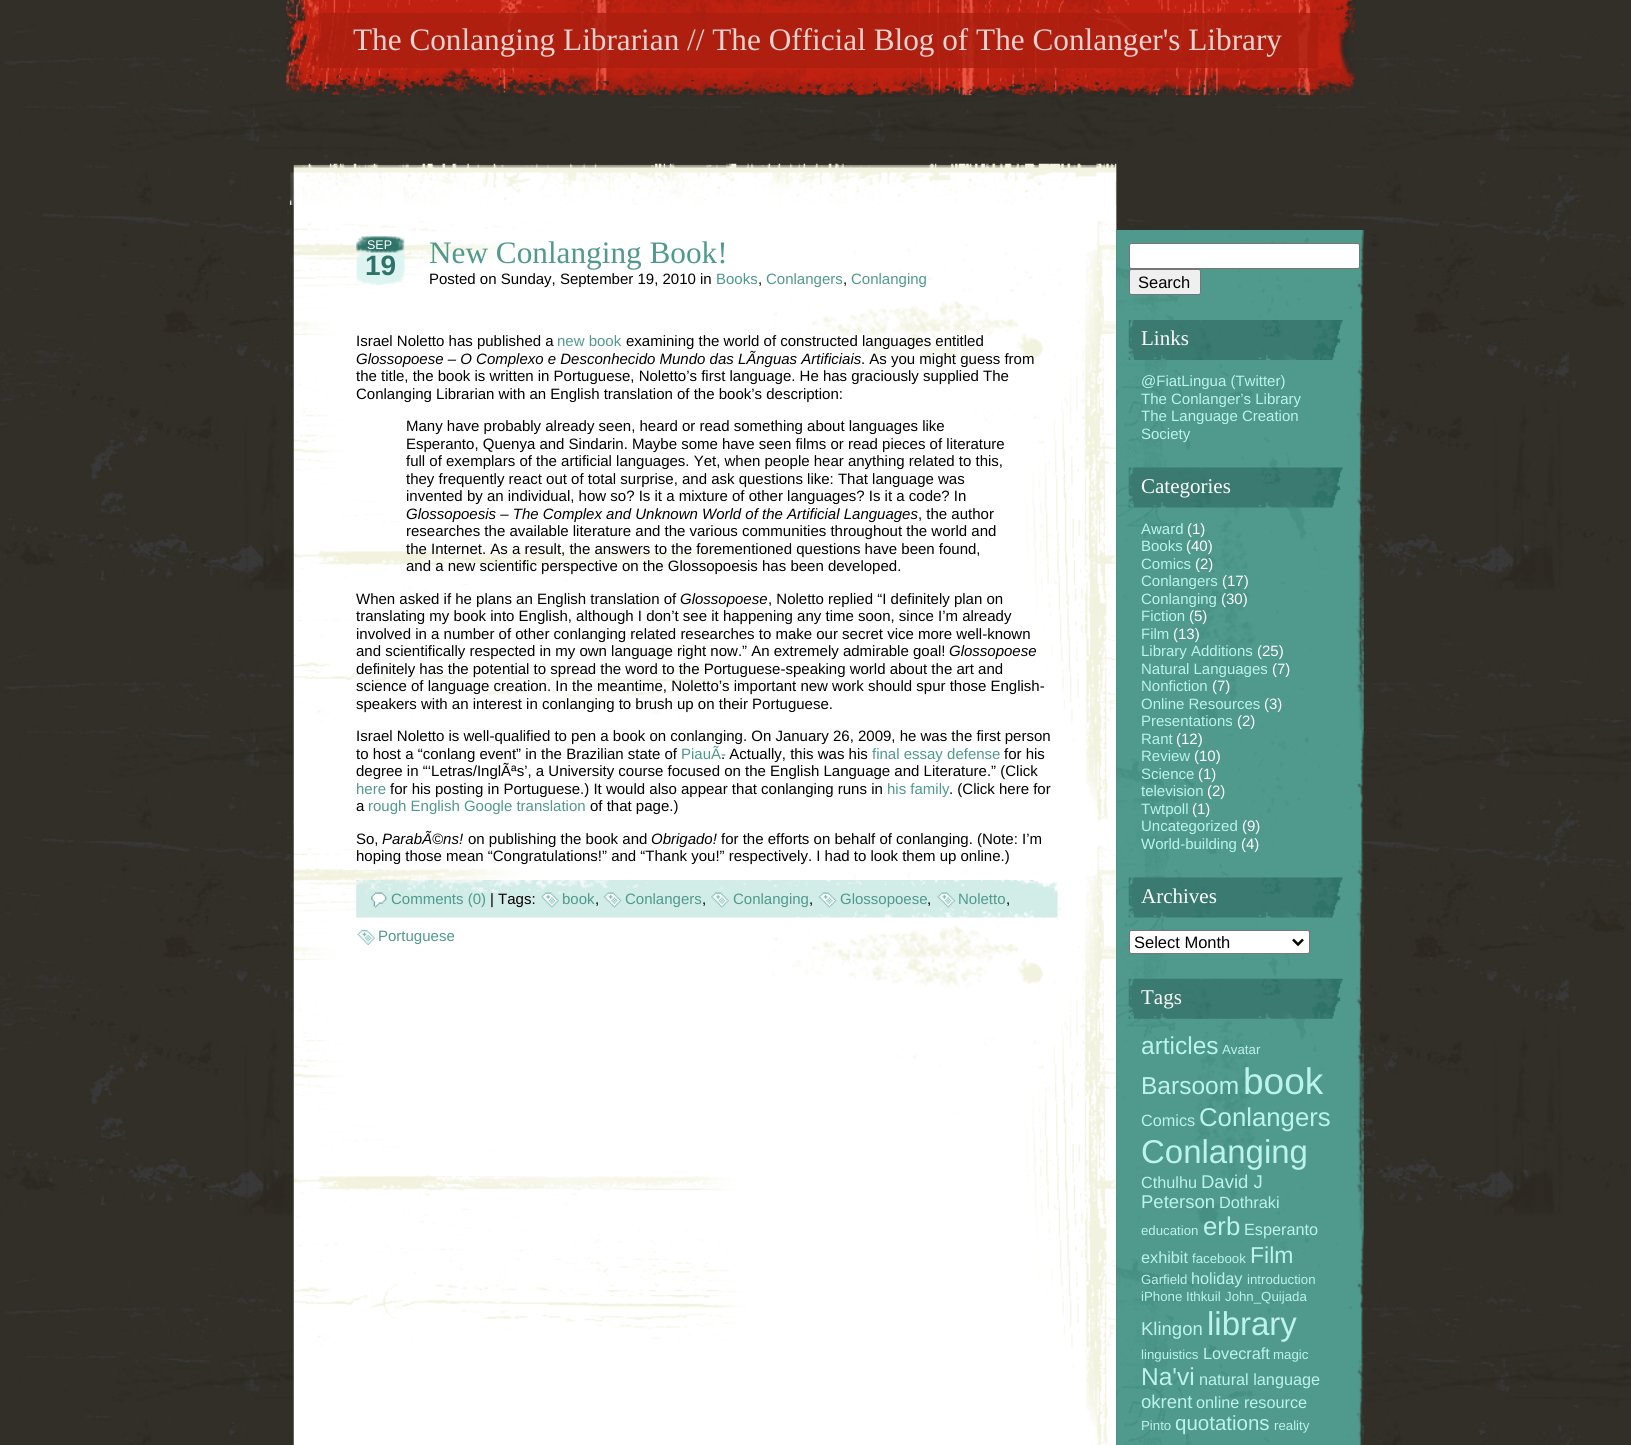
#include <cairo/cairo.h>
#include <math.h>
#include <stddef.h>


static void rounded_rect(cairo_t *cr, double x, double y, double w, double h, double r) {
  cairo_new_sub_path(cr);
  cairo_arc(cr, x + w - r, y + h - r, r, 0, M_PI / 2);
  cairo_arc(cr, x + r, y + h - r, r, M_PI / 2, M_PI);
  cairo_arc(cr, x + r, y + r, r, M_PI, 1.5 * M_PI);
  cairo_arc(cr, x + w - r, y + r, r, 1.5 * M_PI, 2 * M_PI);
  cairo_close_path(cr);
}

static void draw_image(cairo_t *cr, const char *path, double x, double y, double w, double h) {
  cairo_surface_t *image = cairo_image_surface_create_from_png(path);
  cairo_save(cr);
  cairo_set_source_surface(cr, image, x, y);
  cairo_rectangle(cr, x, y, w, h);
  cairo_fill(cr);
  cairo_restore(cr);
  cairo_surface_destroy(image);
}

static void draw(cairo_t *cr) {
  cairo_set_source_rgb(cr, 50 / 255.0, 47 / 255.0, 40 / 255.0);
  cairo_paint(cr);
  draw_image(cr, "images/1.png", 0, 19, 1631, 1426);
  draw_image(cr, "images/2.png", 286, 0, 1070, 97);
  cairo_set_source_rgba(cr, 170 / 255.0, 31 / 255.0, 16 / 255.0, 0.8);
  cairo_rectangle(cr, 319, 13, 999, 55);
  cairo_fill(cr);
  draw_image(cr, "images/3.png", 289, 163, 828, 42);
  draw_image(cr, "images/4.png", 293, 205, 824, 1240);
  draw_image(cr, "images/5.png", 356, 236, 49, 50);
  draw_image(cr, "images/6.png", 356, 880, 702, 38);
  draw_image(cr, "images/7.png", 371, 892, 16, 16);
  draw_image(cr, "images/8.png", 541, 892, 18, 16);
  draw_image(cr, "images/9.png", 603, 892, 19, 16);
  draw_image(cr, "images/10.png", 711, 892, 18, 16);
  draw_image(cr, "images/11.png", 818, 892, 19, 16);
  draw_image(cr, "images/12.png", 937, 892, 19, 16);
  draw_image(cr, "images/13.png", 357, 929, 19, 16);
  draw_image(cr, "images/14.png", 1116, 230, 248, 1215);
  cairo_set_source_rgb(cr, 1, 1, 1);
  rounded_rect(cr, 1129.5, 243.5, 230, 25, 2);
  cairo_fill_preserve(cr);
  cairo_set_source_rgb(cr, 118 / 255.0, 118 / 255.0, 118 / 255.0);
  cairo_set_line_width(cr, 1);
  cairo_stroke(cr);
  cairo_set_source_rgb(cr, 239 / 255.0, 239 / 255.0, 239 / 255.0);
  rounded_rect(cr, 1129.5, 269.5, 71, 25, 2);
  cairo_fill_preserve(cr);
  cairo_set_source_rgb(cr, 118 / 255.0, 118 / 255.0, 118 / 255.0);
  cairo_stroke(cr);
  draw_image(cr, "images/15.png", 1128, 320, 215, 40);
  draw_image(cr, "images/16.png", 1128, 467, 215, 41);
  draw_image(cr, "images/17.png", 1128, 877, 215, 41);
  cairo_set_source_rgb(cr, 1, 1, 1);
  rounded_rect(cr, 1129.5, 930.5, 180, 23, 2);
  cairo_fill_preserve(cr);
  cairo_set_source_rgb(cr, 118 / 255.0, 118 / 255.0, 118 / 255.0);
  cairo_stroke(cr);
  cairo_new_path(cr);
  cairo_move_to(cr, 1293, 939.5);
  cairo_line_to(cr, 1298, 944.5);
  cairo_line_to(cr, 1303, 939.5);
  cairo_set_source_rgb(cr, 0, 0, 0);
  cairo_set_line_width(cr, 2.5);
  cairo_stroke(cr);
  draw_image(cr, "images/18.png", 1128, 978, 215, 41);
  cairo_select_font_face(cr, "Liberation Serif", CAIRO_FONT_SLANT_NORMAL, CAIRO_FONT_WEIGHT_NORMAL);
  cairo_set_font_size(cr, 31.25);
  cairo_set_source_rgb(cr, 239 / 255.0, 210 / 255.0, 207 / 255.0);
  cairo_move_to(cr, 353, 50);
  cairo_show_text(cr, "The Conlanging Librarian // The Official Blog of The Conlanger's Library");
  cairo_select_font_face(cr, "Liberation Sans", CAIRO_FONT_SLANT_NORMAL, CAIRO_FONT_WEIGHT_NORMAL);
  cairo_set_font_size(cr, 12.5);
  cairo_set_source_rgb(cr, 1, 1, 1);
  cairo_move_to(cr, 367, 249);
  cairo_show_text(cr, "SEP");
  cairo_select_font_face(cr, "Liberation Sans", CAIRO_FONT_SLANT_NORMAL, CAIRO_FONT_WEIGHT_BOLD);
  cairo_set_font_size(cr, 28);
  cairo_set_source_rgb(cr, 46 / 255.0, 115 / 255.0, 104 / 255.0);
  cairo_move_to(cr, 365, 275);
  cairo_show_text(cr, "19");
  cairo_select_font_face(cr, "Liberation Serif", CAIRO_FONT_SLANT_NORMAL, CAIRO_FONT_WEIGHT_NORMAL);
  cairo_set_font_size(cr, 31.25);
  cairo_set_source_rgb(cr, 79 / 255.0, 153 / 255.0, 141 / 255.0);
  cairo_move_to(cr, 429, 263);
  cairo_show_text(cr, "New Conlanging Book!");
  cairo_select_font_face(cr, "Liberation Sans", CAIRO_FONT_SLANT_NORMAL, CAIRO_FONT_WEIGHT_NORMAL);
  cairo_set_font_size(cr, 15);
  cairo_set_source_rgb(cr, 0, 0, 0);
  cairo_move_to(cr, 429, 284);
  cairo_show_text(cr, "Posted on Sunday, September 19, 2010 in");
  cairo_set_source_rgb(cr, 79 / 255.0, 153 / 255.0, 141 / 255.0);
  cairo_move_to(cr, 716, 284);
  cairo_show_text(cr, "Books");
  cairo_set_source_rgb(cr, 0, 0, 0);
  cairo_move_to(cr, 758, 284);
  cairo_show_text(cr, ",");
  cairo_set_source_rgb(cr, 79 / 255.0, 153 / 255.0, 141 / 255.0);
  cairo_move_to(cr, 766, 284);
  cairo_show_text(cr, "Conlangers");
  cairo_set_source_rgb(cr, 0, 0, 0);
  cairo_move_to(cr, 843, 284);
  cairo_show_text(cr, ",");
  cairo_set_source_rgb(cr, 79 / 255.0, 153 / 255.0, 141 / 255.0);
  cairo_move_to(cr, 851, 284);
  cairo_show_text(cr, "Conlanging");
  cairo_set_source_rgb(cr, 0, 0, 0);
  cairo_move_to(cr, 356, 346);
  cairo_show_text(cr, "Israel Noletto has published a");
  cairo_set_source_rgb(cr, 79 / 255.0, 153 / 255.0, 141 / 255.0);
  cairo_move_to(cr, 557, 346);
  cairo_show_text(cr, "new book");
  cairo_set_source_rgb(cr, 0, 0, 0);
  cairo_move_to(cr, 626, 346);
  cairo_show_text(cr, "examining the world of constructed languages entitled");
  cairo_select_font_face(cr, "Liberation Sans", CAIRO_FONT_SLANT_ITALIC, CAIRO_FONT_WEIGHT_NORMAL);
  cairo_move_to(cr, 356, 364);
  cairo_show_text(cr, "Glossopoese – O Complexo e Desconhecido Mundo das LÃnguas Artificiais");
  cairo_select_font_face(cr, "Liberation Sans", CAIRO_FONT_SLANT_NORMAL, CAIRO_FONT_WEIGHT_NORMAL);
  cairo_move_to(cr, 861, 364);
  cairo_show_text(cr, ". As you might guess from");
  cairo_move_to(cr, 356, 381);
  cairo_show_text(cr, "the title, the book is written in Portuguese, Noletto’s first language. He has graciously supplied The");
  cairo_move_to(cr, 356, 399);
  cairo_show_text(cr, "Conlanging Librarian with an English translation of the book’s description:");
  cairo_move_to(cr, 406, 431);
  cairo_show_text(cr, "Many have probably already seen, heard or read something about languages like");
  cairo_move_to(cr, 406, 449);
  cairo_show_text(cr, "Esperanto, Quenya and Sindarin. Maybe some have seen films or read pieces of literature");
  cairo_move_to(cr, 406, 466);
  cairo_show_text(cr, "full of exemplars of the artificial languages. Yet, when people hear anything related to this,");
  cairo_move_to(cr, 406, 484);
  cairo_show_text(cr, "they frequently react out of total surprise, and ask questions like: That language was");
  cairo_move_to(cr, 406, 501);
  cairo_show_text(cr, "invented by an individual, how so? Is it a mixture of other languages? Is it a code? In");
  cairo_select_font_face(cr, "Liberation Sans", CAIRO_FONT_SLANT_ITALIC, CAIRO_FONT_WEIGHT_NORMAL);
  cairo_move_to(cr, 406, 519);
  cairo_show_text(cr, "Glossopoesis – The Complex and Unknown World of the Artificial Languages");
  cairo_select_font_face(cr, "Liberation Sans", CAIRO_FONT_SLANT_NORMAL, CAIRO_FONT_WEIGHT_NORMAL);
  cairo_move_to(cr, 918, 519);
  cairo_show_text(cr, ", the author");
  cairo_move_to(cr, 406, 536);
  cairo_show_text(cr, "researches the available literature and the various communities throughout the world and");
  cairo_move_to(cr, 406, 554);
  cairo_show_text(cr, "the Internet. As a result, the answers to the forementioned questions have been found,");
  cairo_move_to(cr, 406, 571);
  cairo_show_text(cr, "and a new scientific perspective on the Glossopoesis has been developed.");
  cairo_move_to(cr, 356, 604);
  cairo_show_text(cr, "When asked if he plans an English translation of");
  cairo_select_font_face(cr, "Liberation Sans", CAIRO_FONT_SLANT_ITALIC, CAIRO_FONT_WEIGHT_NORMAL);
  cairo_move_to(cr, 680, 604);
  cairo_show_text(cr, "Glossopoese");
  cairo_select_font_face(cr, "Liberation Sans", CAIRO_FONT_SLANT_NORMAL, CAIRO_FONT_WEIGHT_NORMAL);
  cairo_move_to(cr, 768, 604);
  cairo_show_text(cr, ", Noletto replied “I definitely plan on");
  cairo_move_to(cr, 356, 621);
  cairo_show_text(cr, "translating my book into English, although I don’t see it happening any time soon, since I’m already");
  cairo_move_to(cr, 356, 639);
  cairo_show_text(cr, "involved in a number of other conlanging related researches to make our secret vice more well-known");
  cairo_move_to(cr, 356, 656);
  cairo_show_text(cr, "and scientifically respected in my own language right now.” An extremely admirable goal!");
  cairo_select_font_face(cr, "Liberation Sans", CAIRO_FONT_SLANT_ITALIC, CAIRO_FONT_WEIGHT_NORMAL);
  cairo_move_to(cr, 949, 656);
  cairo_show_text(cr, "Glossopoese");
  cairo_select_font_face(cr, "Liberation Sans", CAIRO_FONT_SLANT_NORMAL, CAIRO_FONT_WEIGHT_NORMAL);
  cairo_move_to(cr, 356, 674);
  cairo_show_text(cr, "definitely has the potential to spread the word to the Portuguese-speaking world about the art and");
  cairo_move_to(cr, 356, 691);
  cairo_show_text(cr, "science of language creation. In the meantime, Noletto’s important new work should spur those English-");
  cairo_move_to(cr, 356, 709);
  cairo_show_text(cr, "speakers with an interest in conlanging to brush up on their Portuguese.");
  cairo_move_to(cr, 356, 741);
  cairo_show_text(cr, "Israel Noletto is well-qualified to pen a book on conlanging. On January 26, 2009, he was the first person");
  cairo_move_to(cr, 356, 759);
  cairo_show_text(cr, "to host a “conlang event” in the Brazilian state of");
  cairo_set_source_rgb(cr, 79 / 255.0, 153 / 255.0, 141 / 255.0);
  cairo_move_to(cr, 681, 759);
  cairo_show_text(cr, "PiauÃ-");
  cairo_set_source_rgb(cr, 0, 0, 0);
  cairo_move_to(cr, 721, 759);
  cairo_show_text(cr, ". Actually, this was his");
  cairo_set_source_rgb(cr, 79 / 255.0, 153 / 255.0, 141 / 255.0);
  cairo_move_to(cr, 872, 759);
  cairo_show_text(cr, "final essay defense");
  cairo_set_source_rgb(cr, 0, 0, 0);
  cairo_move_to(cr, 1004, 759);
  cairo_show_text(cr, "for his");
  cairo_move_to(cr, 356, 776);
  cairo_show_text(cr, "degree in “‘Letras/InglÃªs’, a University course focused on the English Language and Literature.” (Click");
  cairo_set_source_rgb(cr, 79 / 255.0, 153 / 255.0, 141 / 255.0);
  cairo_move_to(cr, 356, 794);
  cairo_show_text(cr, "here");
  cairo_set_source_rgb(cr, 0, 0, 0);
  cairo_move_to(cr, 390, 794);
  cairo_show_text(cr, "for his posting in Portuguese.) It would also appear that conlanging runs in");
  cairo_set_source_rgb(cr, 79 / 255.0, 153 / 255.0, 141 / 255.0);
  cairo_move_to(cr, 887, 794);
  cairo_show_text(cr, "his family");
  cairo_set_source_rgb(cr, 0, 0, 0);
  cairo_move_to(cr, 949, 794);
  cairo_show_text(cr, ". (Click here for");
  cairo_move_to(cr, 356, 811);
  cairo_show_text(cr, "a");
  cairo_set_source_rgb(cr, 79 / 255.0, 153 / 255.0, 141 / 255.0);
  cairo_move_to(cr, 368, 811);
  cairo_show_text(cr, "rough English Google translation");
  cairo_set_source_rgb(cr, 0, 0, 0);
  cairo_move_to(cr, 590, 811);
  cairo_show_text(cr, "of that page.)");
  cairo_move_to(cr, 356, 844);
  cairo_show_text(cr, "So,");
  cairo_select_font_face(cr, "Liberation Sans", CAIRO_FONT_SLANT_ITALIC, CAIRO_FONT_WEIGHT_NORMAL);
  cairo_move_to(cr, 382, 844);
  cairo_show_text(cr, "ParabÃ©ns!");
  cairo_select_font_face(cr, "Liberation Sans", CAIRO_FONT_SLANT_NORMAL, CAIRO_FONT_WEIGHT_NORMAL);
  cairo_move_to(cr, 468, 844);
  cairo_show_text(cr, "on publishing the book and");
  cairo_select_font_face(cr, "Liberation Sans", CAIRO_FONT_SLANT_ITALIC, CAIRO_FONT_WEIGHT_NORMAL);
  cairo_move_to(cr, 651, 844);
  cairo_show_text(cr, "Obrigado!");
  cairo_select_font_face(cr, "Liberation Sans", CAIRO_FONT_SLANT_NORMAL, CAIRO_FONT_WEIGHT_NORMAL);
  cairo_move_to(cr, 721, 844);
  cairo_show_text(cr, "for the efforts on behalf of conlanging. (Note: I’m");
  cairo_move_to(cr, 356, 861);
  cairo_show_text(cr, "hoping those mean “Congratulations!” and “Thank you!” respectively. I had to look them up online.)");
  cairo_set_source_rgb(cr, 79 / 255.0, 153 / 255.0, 141 / 255.0);
  cairo_move_to(cr, 391, 904);
  cairo_show_text(cr, "Comments (0)");
  cairo_set_source_rgb(cr, 0, 0, 0);
  cairo_move_to(cr, 490, 904);
  cairo_show_text(cr, "| Tags:");
  cairo_set_source_rgb(cr, 79 / 255.0, 153 / 255.0, 141 / 255.0);
  cairo_move_to(cr, 562, 904);
  cairo_show_text(cr, "book");
  cairo_set_source_rgb(cr, 0, 0, 0);
  cairo_move_to(cr, 595, 904);
  cairo_show_text(cr, ",");
  cairo_set_source_rgb(cr, 79 / 255.0, 153 / 255.0, 141 / 255.0);
  cairo_move_to(cr, 625, 904);
  cairo_show_text(cr, "Conlangers");
  cairo_set_source_rgb(cr, 0, 0, 0);
  cairo_move_to(cr, 702, 904);
  cairo_show_text(cr, ",");
  cairo_set_source_rgb(cr, 79 / 255.0, 153 / 255.0, 141 / 255.0);
  cairo_move_to(cr, 733, 904);
  cairo_show_text(cr, "Conlanging");
  cairo_set_source_rgb(cr, 0, 0, 0);
  cairo_move_to(cr, 809, 904);
  cairo_show_text(cr, ",");
  cairo_set_source_rgb(cr, 79 / 255.0, 153 / 255.0, 141 / 255.0);
  cairo_move_to(cr, 840, 904);
  cairo_show_text(cr, "Glossopoese");
  cairo_set_source_rgb(cr, 0, 0, 0);
  cairo_move_to(cr, 927, 904);
  cairo_show_text(cr, ",");
  cairo_set_source_rgb(cr, 79 / 255.0, 153 / 255.0, 141 / 255.0);
  cairo_move_to(cr, 958, 904);
  cairo_show_text(cr, "Noletto");
  cairo_set_source_rgb(cr, 0, 0, 0);
  cairo_move_to(cr, 1006, 904);
  cairo_show_text(cr, ",");
  cairo_set_source_rgb(cr, 79 / 255.0, 153 / 255.0, 141 / 255.0);
  cairo_move_to(cr, 378, 941);
  cairo_show_text(cr, "Portuguese");
  cairo_set_font_size(cr, 16.5);
  cairo_set_source_rgb(cr, 0, 0, 0);
  cairo_move_to(cr, 1138, 288);
  cairo_show_text(cr, "Search");
  cairo_select_font_face(cr, "Liberation Serif", CAIRO_FONT_SLANT_NORMAL, CAIRO_FONT_WEIGHT_NORMAL);
  cairo_set_font_size(cr, 21);
  cairo_set_source_rgb(cr, 1, 1, 1);
  cairo_move_to(cr, 1141, 345);
  cairo_show_text(cr, "Links");
  cairo_select_font_face(cr, "Liberation Sans", CAIRO_FONT_SLANT_NORMAL, CAIRO_FONT_WEIGHT_NORMAL);
  cairo_set_font_size(cr, 15);
  cairo_set_source_rgb(cr, 188 / 255.0, 243 / 255.0, 234 / 255.0);
  cairo_move_to(cr, 1141, 386);
  cairo_show_text(cr, "@FiatLingua (Twitter)");
  cairo_move_to(cr, 1141, 404);
  cairo_show_text(cr, "The Conlanger’s Library");
  cairo_move_to(cr, 1141, 421);
  cairo_show_text(cr, "The Language Creation");
  cairo_move_to(cr, 1141, 439);
  cairo_show_text(cr, "Society");
  cairo_select_font_face(cr, "Liberation Serif", CAIRO_FONT_SLANT_NORMAL, CAIRO_FONT_WEIGHT_NORMAL);
  cairo_set_font_size(cr, 21);
  cairo_set_source_rgb(cr, 1, 1, 1);
  cairo_move_to(cr, 1141, 493);
  cairo_show_text(cr, "Categories");
  cairo_select_font_face(cr, "Liberation Sans", CAIRO_FONT_SLANT_NORMAL, CAIRO_FONT_WEIGHT_NORMAL);
  cairo_set_font_size(cr, 15);
  cairo_set_source_rgb(cr, 188 / 255.0, 243 / 255.0, 234 / 255.0);
  cairo_move_to(cr, 1141, 534);
  cairo_show_text(cr, "Award");
  cairo_set_source_rgb(cr, 1, 1, 1);
  cairo_move_to(cr, 1187, 534);
  cairo_show_text(cr, "(1)");
  cairo_set_source_rgb(cr, 188 / 255.0, 243 / 255.0, 234 / 255.0);
  cairo_move_to(cr, 1141, 551);
  cairo_show_text(cr, "Books");
  cairo_set_source_rgb(cr, 1, 1, 1);
  cairo_move_to(cr, 1186, 551);
  cairo_show_text(cr, "(40)");
  cairo_set_source_rgb(cr, 188 / 255.0, 243 / 255.0, 234 / 255.0);
  cairo_move_to(cr, 1141, 569);
  cairo_show_text(cr, "Comics");
  cairo_set_source_rgb(cr, 1, 1, 1);
  cairo_move_to(cr, 1195, 569);
  cairo_show_text(cr, "(2)");
  cairo_set_source_rgb(cr, 188 / 255.0, 243 / 255.0, 234 / 255.0);
  cairo_move_to(cr, 1141, 586);
  cairo_show_text(cr, "Conlangers");
  cairo_set_source_rgb(cr, 1, 1, 1);
  cairo_move_to(cr, 1222, 586);
  cairo_show_text(cr, "(17)");
  cairo_set_source_rgb(cr, 188 / 255.0, 243 / 255.0, 234 / 255.0);
  cairo_move_to(cr, 1141, 604);
  cairo_show_text(cr, "Conlanging");
  cairo_set_source_rgb(cr, 1, 1, 1);
  cairo_move_to(cr, 1221, 604);
  cairo_show_text(cr, "(30)");
  cairo_set_source_rgb(cr, 188 / 255.0, 243 / 255.0, 234 / 255.0);
  cairo_move_to(cr, 1141, 621);
  cairo_show_text(cr, "Fiction");
  cairo_set_source_rgb(cr, 1, 1, 1);
  cairo_move_to(cr, 1189, 621);
  cairo_show_text(cr, "(5)");
  cairo_set_source_rgb(cr, 188 / 255.0, 243 / 255.0, 234 / 255.0);
  cairo_move_to(cr, 1141, 639);
  cairo_show_text(cr, "Film");
  cairo_set_source_rgb(cr, 1, 1, 1);
  cairo_move_to(cr, 1173, 639);
  cairo_show_text(cr, "(13)");
  cairo_set_source_rgb(cr, 188 / 255.0, 243 / 255.0, 234 / 255.0);
  cairo_move_to(cr, 1141, 656);
  cairo_show_text(cr, "Library Additions");
  cairo_set_source_rgb(cr, 1, 1, 1);
  cairo_move_to(cr, 1257, 656);
  cairo_show_text(cr, "(25)");
  cairo_set_source_rgb(cr, 188 / 255.0, 243 / 255.0, 234 / 255.0);
  cairo_move_to(cr, 1141, 674);
  cairo_show_text(cr, "Natural Languages");
  cairo_set_source_rgb(cr, 1, 1, 1);
  cairo_move_to(cr, 1272, 674);
  cairo_show_text(cr, "(7)");
  cairo_set_source_rgb(cr, 188 / 255.0, 243 / 255.0, 234 / 255.0);
  cairo_move_to(cr, 1141, 691);
  cairo_show_text(cr, "Nonfiction");
  cairo_set_source_rgb(cr, 1, 1, 1);
  cairo_move_to(cr, 1212, 691);
  cairo_show_text(cr, "(7)");
  cairo_set_source_rgb(cr, 188 / 255.0, 243 / 255.0, 234 / 255.0);
  cairo_move_to(cr, 1141, 709);
  cairo_show_text(cr, "Online Resources");
  cairo_set_source_rgb(cr, 1, 1, 1);
  cairo_move_to(cr, 1264, 709);
  cairo_show_text(cr, "(3)");
  cairo_set_source_rgb(cr, 188 / 255.0, 243 / 255.0, 234 / 255.0);
  cairo_move_to(cr, 1141, 726);
  cairo_show_text(cr, "Presentations");
  cairo_set_source_rgb(cr, 1, 1, 1);
  cairo_move_to(cr, 1237, 726);
  cairo_show_text(cr, "(2)");
  cairo_set_source_rgb(cr, 188 / 255.0, 243 / 255.0, 234 / 255.0);
  cairo_move_to(cr, 1141, 744);
  cairo_show_text(cr, "Rant");
  cairo_set_source_rgb(cr, 1, 1, 1);
  cairo_move_to(cr, 1176, 744);
  cairo_show_text(cr, "(12)");
  cairo_set_source_rgb(cr, 188 / 255.0, 243 / 255.0, 234 / 255.0);
  cairo_move_to(cr, 1141, 761);
  cairo_show_text(cr, "Review");
  cairo_set_source_rgb(cr, 1, 1, 1);
  cairo_move_to(cr, 1194, 761);
  cairo_show_text(cr, "(10)");
  cairo_set_source_rgb(cr, 188 / 255.0, 243 / 255.0, 234 / 255.0);
  cairo_move_to(cr, 1141, 779);
  cairo_show_text(cr, "Science");
  cairo_set_source_rgb(cr, 1, 1, 1);
  cairo_move_to(cr, 1198, 779);
  cairo_show_text(cr, "(1)");
  cairo_set_source_rgb(cr, 188 / 255.0, 243 / 255.0, 234 / 255.0);
  cairo_move_to(cr, 1141, 796);
  cairo_show_text(cr, "television");
  cairo_set_source_rgb(cr, 1, 1, 1);
  cairo_move_to(cr, 1207, 796);
  cairo_show_text(cr, "(2)");
  cairo_set_source_rgb(cr, 188 / 255.0, 243 / 255.0, 234 / 255.0);
  cairo_move_to(cr, 1141, 814);
  cairo_show_text(cr, "Twtpoll");
  cairo_set_source_rgb(cr, 1, 1, 1);
  cairo_move_to(cr, 1192, 814);
  cairo_show_text(cr, "(1)");
  cairo_set_source_rgb(cr, 188 / 255.0, 243 / 255.0, 234 / 255.0);
  cairo_move_to(cr, 1141, 831);
  cairo_show_text(cr, "Uncategorized");
  cairo_set_source_rgb(cr, 1, 1, 1);
  cairo_move_to(cr, 1242, 831);
  cairo_show_text(cr, "(9)");
  cairo_set_source_rgb(cr, 188 / 255.0, 243 / 255.0, 234 / 255.0);
  cairo_move_to(cr, 1141, 849);
  cairo_show_text(cr, "World-building");
  cairo_set_source_rgb(cr, 1, 1, 1);
  cairo_move_to(cr, 1241, 849);
  cairo_show_text(cr, "(4)");
  cairo_select_font_face(cr, "Liberation Serif", CAIRO_FONT_SLANT_NORMAL, CAIRO_FONT_WEIGHT_NORMAL);
  cairo_set_font_size(cr, 21);
  cairo_move_to(cr, 1141, 903);
  cairo_show_text(cr, "Archives");
  cairo_select_font_face(cr, "Liberation Sans", CAIRO_FONT_SLANT_NORMAL, CAIRO_FONT_WEIGHT_NORMAL);
  cairo_set_font_size(cr, 16.5);
  cairo_set_source_rgb(cr, 0, 0, 0);
  cairo_move_to(cr, 1134, 948);
  cairo_show_text(cr, "Select Month");
  cairo_select_font_face(cr, "Liberation Serif", CAIRO_FONT_SLANT_NORMAL, CAIRO_FONT_WEIGHT_NORMAL);
  cairo_set_font_size(cr, 21);
  cairo_set_source_rgb(cr, 1, 1, 1);
  cairo_move_to(cr, 1141, 1004);
  cairo_show_text(cr, "Tags");
  cairo_select_font_face(cr, "Liberation Sans", CAIRO_FONT_SLANT_NORMAL, CAIRO_FONT_WEIGHT_NORMAL);
  cairo_set_font_size(cr, 24.5);
  cairo_set_source_rgb(cr, 188 / 255.0, 243 / 255.0, 234 / 255.0);
  cairo_move_to(cr, 1141, 1054);
  cairo_show_text(cr, "articles");
  cairo_set_font_size(cr, 13.25);
  cairo_move_to(cr, 1222, 1054);
  cairo_show_text(cr, "Avatar");
  cairo_set_font_size(cr, 24.5);
  cairo_move_to(cr, 1141, 1094);
  cairo_show_text(cr, "Barsoom");
  cairo_set_font_size(cr, 37);
  cairo_move_to(cr, 1243, 1094);
  cairo_show_text(cr, "book");
  cairo_set_font_size(cr, 16.25);
  cairo_move_to(cr, 1141, 1126);
  cairo_show_text(cr, "Comics");
  cairo_set_font_size(cr, 25.75);
  cairo_move_to(cr, 1199, 1126);
  cairo_show_text(cr, "Conlangers");
  cairo_set_font_size(cr, 33);
  cairo_move_to(cr, 1141, 1163);
  cairo_show_text(cr, "Conlanging");
  cairo_set_font_size(cr, 16.25);
  cairo_move_to(cr, 1141, 1188);
  cairo_show_text(cr, "Cthulhu");
  cairo_set_font_size(cr, 18.5);
  cairo_move_to(cr, 1201, 1188);
  cairo_show_text(cr, "David J");
  cairo_move_to(cr, 1141, 1208);
  cairo_show_text(cr, "Peterson");
  cairo_set_font_size(cr, 16.25);
  cairo_move_to(cr, 1219, 1208);
  cairo_show_text(cr, "Dothraki");
  cairo_set_font_size(cr, 13.25);
  cairo_move_to(cr, 1141, 1235);
  cairo_show_text(cr, "education");
  cairo_set_font_size(cr, 25.75);
  cairo_move_to(cr, 1203, 1235);
  cairo_show_text(cr, "erb");
  cairo_set_font_size(cr, 16.25);
  cairo_move_to(cr, 1244, 1235);
  cairo_show_text(cr, "Esperanto");
  cairo_move_to(cr, 1141, 1263);
  cairo_show_text(cr, "exhibit");
  cairo_set_font_size(cr, 13.25);
  cairo_move_to(cr, 1192, 1263);
  cairo_show_text(cr, "facebook");
  cairo_set_font_size(cr, 23);
  cairo_move_to(cr, 1250, 1263);
  cairo_show_text(cr, "Film");
  cairo_set_font_size(cr, 13.25);
  cairo_move_to(cr, 1141, 1284);
  cairo_show_text(cr, "Garfield");
  cairo_set_font_size(cr, 16.25);
  cairo_move_to(cr, 1191, 1284);
  cairo_show_text(cr, "holiday");
  cairo_set_font_size(cr, 13.25);
  cairo_move_to(cr, 1247, 1284);
  cairo_show_text(cr, "introduction");
  cairo_move_to(cr, 1141, 1301);
  cairo_show_text(cr, "iPhone");
  cairo_move_to(cr, 1186, 1301);
  cairo_show_text(cr, "Ithkuil");
  cairo_move_to(cr, 1225, 1301);
  cairo_show_text(cr, "John_Quijada");
  cairo_set_font_size(cr, 18.5);
  cairo_move_to(cr, 1141, 1335);
  cairo_show_text(cr, "Klingon");
  cairo_set_font_size(cr, 33);
  cairo_move_to(cr, 1207, 1335);
  cairo_show_text(cr, "library");
  cairo_set_font_size(cr, 13.25);
  cairo_move_to(cr, 1141, 1359);
  cairo_show_text(cr, "linguistics");
  cairo_set_font_size(cr, 16.25);
  cairo_move_to(cr, 1203, 1359);
  cairo_show_text(cr, "Lovecraft");
  cairo_set_font_size(cr, 13.25);
  cairo_move_to(cr, 1273, 1359);
  cairo_show_text(cr, "magic");
  cairo_set_font_size(cr, 24.5);
  cairo_move_to(cr, 1141, 1385);
  cairo_show_text(cr, "Na'vi");
  cairo_set_font_size(cr, 16.25);
  cairo_move_to(cr, 1199, 1385);
  cairo_show_text(cr, "natural language");
  cairo_set_font_size(cr, 18.5);
  cairo_move_to(cr, 1141, 1408);
  cairo_show_text(cr, "okrent");
  cairo_set_font_size(cr, 16.25);
  cairo_move_to(cr, 1196, 1408);
  cairo_show_text(cr, "online resource");
  cairo_set_font_size(cr, 13.25);
  cairo_move_to(cr, 1141, 1430);
  cairo_show_text(cr, "Pinto");
  cairo_set_font_size(cr, 20.5);
  cairo_move_to(cr, 1175, 1430);
  cairo_show_text(cr, "quotations");
  cairo_set_font_size(cr, 13.25);
  cairo_move_to(cr, 1274, 1430);
  cairo_show_text(cr, "reality");
}

int main(void) {
  cairo_surface_t *surface = cairo_image_surface_create(CAIRO_FORMAT_RGB24, 1631, 1445);
  cairo_t *cr = cairo_create(surface);
  cairo_font_options_t *options = cairo_font_options_create();
  cairo_font_options_set_hint_metrics(options, CAIRO_HINT_METRICS_OFF);
  cairo_font_options_set_hint_style(options, CAIRO_HINT_STYLE_NONE);
  cairo_set_font_options(cr, options);
  cairo_set_miter_limit(cr, 4);
  draw(cr);
  cairo_surface_write_to_png(surface, "out.png");
  cairo_font_options_destroy(options);
  cairo_destroy(cr);
  cairo_surface_destroy(surface);
  return 0;
}
